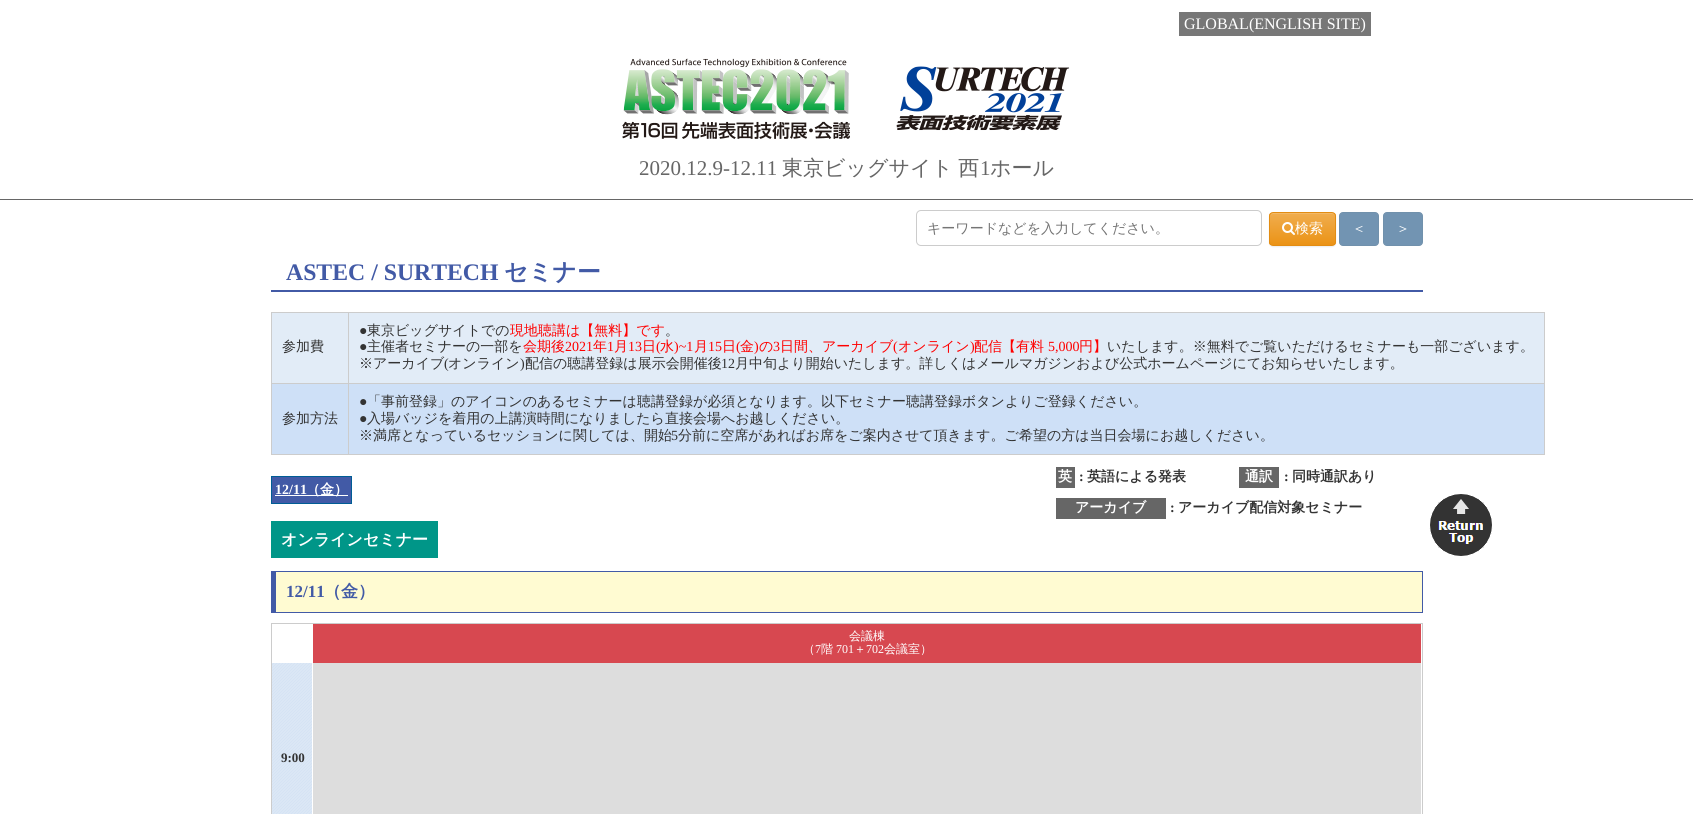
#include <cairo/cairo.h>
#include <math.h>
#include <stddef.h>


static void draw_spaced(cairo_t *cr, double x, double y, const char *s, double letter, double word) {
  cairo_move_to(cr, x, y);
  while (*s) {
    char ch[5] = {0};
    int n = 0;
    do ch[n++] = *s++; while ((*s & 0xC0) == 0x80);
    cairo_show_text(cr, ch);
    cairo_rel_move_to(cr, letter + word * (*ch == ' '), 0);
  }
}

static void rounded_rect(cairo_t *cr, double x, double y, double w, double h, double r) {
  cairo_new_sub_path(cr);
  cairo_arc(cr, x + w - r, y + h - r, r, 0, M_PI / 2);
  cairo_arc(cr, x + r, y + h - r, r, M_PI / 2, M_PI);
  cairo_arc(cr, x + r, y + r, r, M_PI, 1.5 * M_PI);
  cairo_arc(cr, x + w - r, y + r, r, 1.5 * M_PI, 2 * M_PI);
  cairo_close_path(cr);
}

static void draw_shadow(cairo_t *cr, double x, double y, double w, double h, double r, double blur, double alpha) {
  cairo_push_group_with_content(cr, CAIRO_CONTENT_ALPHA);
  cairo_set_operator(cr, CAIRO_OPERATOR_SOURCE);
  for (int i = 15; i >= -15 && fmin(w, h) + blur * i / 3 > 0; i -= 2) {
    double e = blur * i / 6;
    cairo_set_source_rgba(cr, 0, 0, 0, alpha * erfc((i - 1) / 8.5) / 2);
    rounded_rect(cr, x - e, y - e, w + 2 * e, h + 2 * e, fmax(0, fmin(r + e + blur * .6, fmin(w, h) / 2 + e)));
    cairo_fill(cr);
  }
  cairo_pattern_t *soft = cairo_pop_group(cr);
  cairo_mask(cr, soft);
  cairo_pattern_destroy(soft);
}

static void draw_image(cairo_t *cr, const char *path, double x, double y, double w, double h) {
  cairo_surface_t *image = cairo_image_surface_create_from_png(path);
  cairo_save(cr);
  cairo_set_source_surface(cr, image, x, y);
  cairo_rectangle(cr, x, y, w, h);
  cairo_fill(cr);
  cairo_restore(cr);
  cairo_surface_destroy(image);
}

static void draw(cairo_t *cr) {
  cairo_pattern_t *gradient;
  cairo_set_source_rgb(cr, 1, 1, 1);
  cairo_paint(cr);
  cairo_set_source_rgb(cr, 119 / 255.0, 119 / 255.0, 119 / 255.0);
  cairo_rectangle(cr, 1179, 12, 192, 24);
  cairo_fill(cr);
  draw_image(cr, "images/1.png", 622, 58, 448, 81);
  cairo_set_source_rgb(cr, 102 / 255.0, 102 / 255.0, 102 / 255.0);
  cairo_rectangle(cr, 0, 199, 1693, 1);
  cairo_fill(cr);
  rounded_rect(cr, 916.5, 210.5, 345, 35, 4.5);
  cairo_set_source_rgb(cr, 204 / 255.0, 204 / 255.0, 204 / 255.0);
  cairo_set_line_width(cr, 1);
  cairo_stroke(cr);
  cairo_set_source_rgb(cr, 0, 0, 0);
  draw_shadow(cr, 1269, 213, 67, 34, 4, 0.5, 0.07);
  cairo_save(cr);
  rounded_rect(cr, 1269, 212, 67, 34, 4);
  cairo_clip(cr);
  gradient = cairo_pattern_create_linear(1303, 213, 1303, 245);
  cairo_pattern_add_color_stop_rgba(gradient, 0, 240 / 255.0, 173 / 255.0, 78 / 255.0, 1);
  cairo_pattern_add_color_stop_rgba(gradient, 1, 235 / 255.0, 147 / 255.0, 22 / 255.0, 1);
  cairo_set_source(cr, gradient);
  cairo_pattern_destroy(gradient);
  cairo_rectangle(cr, 1269, 213, 67, 32);
  cairo_fill(cr);
  cairo_restore(cr);
  cairo_set_source_rgb(cr, 242 / 255.0, 185 / 255.0, 104 / 255.0);
  cairo_new_path(cr);
  cairo_move_to(cr, 1273, 214);
  cairo_line_to(cr, 1332, 214);
  cairo_curve_to(cr, 1334, 214, 1335, 215, 1335, 217);
  cairo_curve_to(cr, 1335, 211, 1327, 213, 1322, 213);
  cairo_line_to(cr, 1283, 213);
  cairo_curve_to(cr, 1278, 213, 1270, 211, 1270, 217);
  cairo_curve_to(cr, 1270, 215, 1271, 214, 1273, 214);
  cairo_close_path(cr);
  cairo_fill(cr);
  rounded_rect(cr, 1269.5, 212.5, 66, 33, 3.5);
  cairo_set_source_rgb(cr, 227 / 255.0, 141 / 255.0, 19 / 255.0);
  cairo_stroke(cr);
  draw_image(cr, "images/2.png", 1282, 222, 13, 13);
  cairo_set_source_rgb(cr, 114 / 255.0, 148 / 255.0, 178 / 255.0);
  rounded_rect(cr, 1339.5, 212.5, 39, 33, 3.5);
  cairo_fill_preserve(cr);
  cairo_set_source_rgb(cr, 113 / 255.0, 145 / 255.0, 172 / 255.0);
  cairo_stroke(cr);
  cairo_set_source_rgb(cr, 114 / 255.0, 148 / 255.0, 178 / 255.0);
  rounded_rect(cr, 1383.5, 212.5, 39, 33, 3.5);
  cairo_fill_preserve(cr);
  cairo_set_source_rgb(cr, 113 / 255.0, 145 / 255.0, 172 / 255.0);
  cairo_stroke(cr);
  cairo_set_source_rgb(cr, 66 / 255.0, 90 / 255.0, 166 / 255.0);
  cairo_rectangle(cr, 271, 290, 1152, 2);
  cairo_fill(cr);
  cairo_set_source_rgb(cr, 204 / 255.0, 204 / 255.0, 204 / 255.0);
  cairo_rectangle(cr, 271, 312, 1274, 1);
  cairo_fill(cr);
  cairo_rectangle(cr, 1544, 312, 1, 143);
  cairo_fill(cr);
  cairo_rectangle(cr, 271, 454, 1274, 1);
  cairo_fill(cr);
  cairo_rectangle(cr, 271, 312, 1, 143);
  cairo_fill(cr);
  cairo_set_source_rgb(cr, 226 / 255.0, 236 / 255.0, 247 / 255.0);
  cairo_rectangle(cr, 272, 313, 76, 70);
  cairo_fill(cr);
  cairo_rectangle(cr, 349, 313, 1195, 70);
  cairo_fill(cr);
  cairo_set_source_rgb(cr, 204 / 255.0, 204 / 255.0, 204 / 255.0);
  cairo_rectangle(cr, 348, 383, 1197, 1);
  cairo_fill(cr);
  cairo_rectangle(cr, 348, 383, 1, 72);
  cairo_fill(cr);
  cairo_rectangle(cr, 271, 383, 78, 1);
  cairo_fill(cr);
  cairo_rectangle(cr, 348, 312, 1, 72);
  cairo_fill(cr);
  cairo_set_source_rgb(cr, 206 / 255.0, 224 / 255.0, 247 / 255.0);
  cairo_rectangle(cr, 272, 384, 76, 70);
  cairo_fill(cr);
  cairo_rectangle(cr, 349, 384, 1195, 70);
  cairo_fill(cr);
  cairo_set_source_rgb(cr, 66 / 255.0, 90 / 255.0, 166 / 255.0);
  cairo_rectangle(cr, 271.5, 476.5, 80, 27);
  cairo_fill_preserve(cr);
  cairo_set_source_rgb(cr, 0, 93 / 255.0, 149 / 255.0);
  cairo_stroke(cr);
  cairo_set_source_rgb(cr, 1, 1, 1);
  cairo_rectangle(cr, 275, 495, 73, 1);
  cairo_fill(cr);
  cairo_set_source_rgb(cr, 102 / 255.0, 102 / 255.0, 102 / 255.0);
  cairo_rectangle(cr, 1056, 467, 19, 21);
  cairo_fill(cr);
  cairo_rectangle(cr, 1239, 467, 40, 21);
  cairo_fill(cr);
  cairo_rectangle(cr, 1056, 498, 110, 21);
  cairo_fill(cr);
  cairo_set_source_rgb(cr, 0, 150 / 255.0, 136 / 255.0);
  cairo_rectangle(cr, 271, 521, 167, 37);
  cairo_fill(cr);
  draw_image(cr, "images/3.png", 1429, 494, 64, 62);
  cairo_set_source_rgb(cr, 1, 251 / 255.0, 210 / 255.0);
  cairo_rectangle(cr, 276, 572, 1146, 40);
  cairo_fill(cr);
  cairo_set_source_rgb(cr, 66 / 255.0, 90 / 255.0, 166 / 255.0);
  cairo_rectangle(cr, 271, 571, 1152, 1);
  cairo_fill(cr);
  cairo_rectangle(cr, 1422, 571, 1, 42);
  cairo_fill(cr);
  cairo_rectangle(cr, 271, 612, 1152, 1);
  cairo_fill(cr);
  cairo_rectangle(cr, 271, 571, 5, 42);
  cairo_fill(cr);
  cairo_rectangle(cr, 271.5, 623.5, 1151, 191);
  cairo_set_source_rgb(cr, 204 / 255.0, 204 / 255.0, 204 / 255.0);
  cairo_stroke(cr);
  cairo_set_source_rgb(cr, 215 / 255.0, 72 / 255.0, 80 / 255.0);
  cairo_rectangle(cr, 313, 624, 1108, 39);
  cairo_fill(cr);
  draw_image(cr, "images/4.png", 272, 663, 40, 151);
  cairo_set_source_rgb(cr, 221 / 255.0, 221 / 255.0, 221 / 255.0);
  cairo_rectangle(cr, 313, 663, 1108, 151);
  cairo_fill(cr);
  cairo_select_font_face(cr, "Liberation Serif", CAIRO_FONT_SLANT_NORMAL, CAIRO_FONT_WEIGHT_NORMAL);
  cairo_set_font_size(cr, 16);
  cairo_set_source_rgb(cr, 1, 1, 1);
  cairo_move_to(cr, 1184, 29);
  cairo_show_text(cr, "GLOBAL(ENGLISH SITE)");
  cairo_set_font_size(cr, 21);
  cairo_set_source_rgb(cr, 102 / 255.0, 102 / 255.0, 102 / 255.0);
  cairo_move_to(cr, 639, 175);
  cairo_show_text(cr, "2020.12.9-12.11");
  cairo_select_font_face(cr, "WenQuanYi Zen Hei Medium", CAIRO_FONT_SLANT_NORMAL, CAIRO_FONT_WEIGHT_NORMAL);
  draw_spaced(cr, 782, 175, "東京ビッグサイト 西", 0, -1);
  cairo_select_font_face(cr, "Liberation Serif", CAIRO_FONT_SLANT_NORMAL, CAIRO_FONT_WEIGHT_NORMAL);
  cairo_move_to(cr, 980, 175);
  cairo_show_text(cr, "1");
  cairo_select_font_face(cr, "WenQuanYi Zen Hei Medium", CAIRO_FONT_SLANT_NORMAL, CAIRO_FONT_WEIGHT_NORMAL);
  cairo_move_to(cr, 990, 175);
  cairo_show_text(cr, "ホール");
  cairo_set_font_size(cr, 14);
  cairo_set_source_rgb(cr, 117 / 255.0, 117 / 255.0, 117 / 255.0);
  cairo_move_to(cr, 927, 233);
  cairo_show_text(cr, "キーワードなどを入力してください。");
  cairo_set_source_rgb(cr, 1, 1, 1);
  cairo_move_to(cr, 1295, 233);
  cairo_show_text(cr, "検索");
  cairo_move_to(cr, 1352, 233);
  cairo_show_text(cr, "＜");
  cairo_move_to(cr, 1396, 233);
  cairo_show_text(cr, "＞");
  cairo_select_font_face(cr, "Liberation Serif", CAIRO_FONT_SLANT_NORMAL, CAIRO_FONT_WEIGHT_BOLD);
  cairo_set_font_size(cr, 23.75);
  cairo_set_source_rgb(cr, 66 / 255.0, 90 / 255.0, 166 / 255.0);
  cairo_move_to(cr, 286, 280);
  cairo_show_text(cr, "ASTEC / SURTECH");
  cairo_select_font_face(cr, "WenQuanYi Zen Hei", CAIRO_FONT_SLANT_NORMAL, CAIRO_FONT_WEIGHT_BOLD);
  cairo_move_to(cr, 504, 280);
  cairo_show_text(cr, "セミナー");
  cairo_select_font_face(cr, "WenQuanYi Zen Hei Medium", CAIRO_FONT_SLANT_NORMAL, CAIRO_FONT_WEIGHT_NORMAL);
  cairo_set_font_size(cr, 14);
  cairo_set_source_rgb(cr, 51 / 255.0, 51 / 255.0, 51 / 255.0);
  cairo_move_to(cr, 282, 351);
  cairo_show_text(cr, "参加費");
  cairo_select_font_face(cr, "Liberation Serif", CAIRO_FONT_SLANT_NORMAL, CAIRO_FONT_WEIGHT_NORMAL);
  cairo_move_to(cr, 359, 335);
  cairo_show_text(cr, "●");
  cairo_select_font_face(cr, "WenQuanYi Zen Hei Medium", CAIRO_FONT_SLANT_NORMAL, CAIRO_FONT_WEIGHT_NORMAL);
  cairo_move_to(cr, 367, 335);
  cairo_show_text(cr, "東京ビッグサイトでの");
  cairo_set_source_rgb(cr, 1, 0, 0);
  cairo_move_to(cr, 510, 335);
  cairo_show_text(cr, "現地聴講は【無料】です");
  cairo_set_source_rgb(cr, 51 / 255.0, 51 / 255.0, 51 / 255.0);
  cairo_move_to(cr, 665, 335);
  cairo_show_text(cr, "。");
  cairo_select_font_face(cr, "Liberation Serif", CAIRO_FONT_SLANT_NORMAL, CAIRO_FONT_WEIGHT_NORMAL);
  cairo_move_to(cr, 359, 351);
  cairo_show_text(cr, "●");
  cairo_select_font_face(cr, "WenQuanYi Zen Hei Medium", CAIRO_FONT_SLANT_NORMAL, CAIRO_FONT_WEIGHT_NORMAL);
  cairo_move_to(cr, 367, 351);
  cairo_show_text(cr, "主催者セミナーの一部を");
  cairo_set_source_rgb(cr, 1, 0, 0);
  cairo_move_to(cr, 523, 351);
  cairo_show_text(cr, "会期後");
  cairo_select_font_face(cr, "Liberation Serif", CAIRO_FONT_SLANT_NORMAL, CAIRO_FONT_WEIGHT_NORMAL);
  cairo_move_to(cr, 565, 351);
  cairo_show_text(cr, "2021");
  cairo_select_font_face(cr, "WenQuanYi Zen Hei Medium", CAIRO_FONT_SLANT_NORMAL, CAIRO_FONT_WEIGHT_NORMAL);
  cairo_move_to(cr, 593, 351);
  cairo_show_text(cr, "年");
  cairo_select_font_face(cr, "Liberation Serif", CAIRO_FONT_SLANT_NORMAL, CAIRO_FONT_WEIGHT_NORMAL);
  cairo_move_to(cr, 607, 351);
  cairo_show_text(cr, "1");
  cairo_select_font_face(cr, "WenQuanYi Zen Hei Medium", CAIRO_FONT_SLANT_NORMAL, CAIRO_FONT_WEIGHT_NORMAL);
  cairo_move_to(cr, 614, 351);
  cairo_show_text(cr, "月");
  cairo_select_font_face(cr, "Liberation Serif", CAIRO_FONT_SLANT_NORMAL, CAIRO_FONT_WEIGHT_NORMAL);
  cairo_move_to(cr, 628, 351);
  cairo_show_text(cr, "13");
  cairo_select_font_face(cr, "WenQuanYi Zen Hei Medium", CAIRO_FONT_SLANT_NORMAL, CAIRO_FONT_WEIGHT_NORMAL);
  cairo_move_to(cr, 642, 351);
  cairo_show_text(cr, "日");
  cairo_select_font_face(cr, "Liberation Serif", CAIRO_FONT_SLANT_NORMAL, CAIRO_FONT_WEIGHT_NORMAL);
  cairo_move_to(cr, 656, 351);
  cairo_show_text(cr, "(");
  cairo_select_font_face(cr, "WenQuanYi Zen Hei Medium", CAIRO_FONT_SLANT_NORMAL, CAIRO_FONT_WEIGHT_NORMAL);
  cairo_move_to(cr, 660, 351);
  cairo_show_text(cr, "水");
  cairo_select_font_face(cr, "Liberation Serif", CAIRO_FONT_SLANT_NORMAL, CAIRO_FONT_WEIGHT_NORMAL);
  cairo_move_to(cr, 674, 351);
  cairo_show_text(cr, ")~1");
  cairo_select_font_face(cr, "WenQuanYi Zen Hei Medium", CAIRO_FONT_SLANT_NORMAL, CAIRO_FONT_WEIGHT_NORMAL);
  cairo_move_to(cr, 694, 351);
  cairo_show_text(cr, "月");
  cairo_select_font_face(cr, "Liberation Serif", CAIRO_FONT_SLANT_NORMAL, CAIRO_FONT_WEIGHT_NORMAL);
  cairo_move_to(cr, 708, 351);
  cairo_show_text(cr, "15");
  cairo_select_font_face(cr, "WenQuanYi Zen Hei Medium", CAIRO_FONT_SLANT_NORMAL, CAIRO_FONT_WEIGHT_NORMAL);
  cairo_move_to(cr, 722, 351);
  cairo_show_text(cr, "日");
  cairo_select_font_face(cr, "Liberation Serif", CAIRO_FONT_SLANT_NORMAL, CAIRO_FONT_WEIGHT_NORMAL);
  cairo_move_to(cr, 736, 351);
  cairo_show_text(cr, "(");
  cairo_select_font_face(cr, "WenQuanYi Zen Hei Medium", CAIRO_FONT_SLANT_NORMAL, CAIRO_FONT_WEIGHT_NORMAL);
  cairo_move_to(cr, 740, 351);
  cairo_show_text(cr, "金");
  cairo_select_font_face(cr, "Liberation Serif", CAIRO_FONT_SLANT_NORMAL, CAIRO_FONT_WEIGHT_NORMAL);
  cairo_move_to(cr, 754, 351);
  cairo_show_text(cr, ")");
  cairo_select_font_face(cr, "WenQuanYi Zen Hei Medium", CAIRO_FONT_SLANT_NORMAL, CAIRO_FONT_WEIGHT_NORMAL);
  cairo_move_to(cr, 759, 351);
  cairo_show_text(cr, "の");
  cairo_select_font_face(cr, "Liberation Serif", CAIRO_FONT_SLANT_NORMAL, CAIRO_FONT_WEIGHT_NORMAL);
  cairo_move_to(cr, 773, 351);
  cairo_show_text(cr, "3");
  cairo_select_font_face(cr, "WenQuanYi Zen Hei Medium", CAIRO_FONT_SLANT_NORMAL, CAIRO_FONT_WEIGHT_NORMAL);
  cairo_move_to(cr, 780, 351);
  cairo_show_text(cr, "日間、アーカイブ");
  cairo_select_font_face(cr, "Liberation Serif", CAIRO_FONT_SLANT_NORMAL, CAIRO_FONT_WEIGHT_NORMAL);
  cairo_move_to(cr, 893, 351);
  cairo_show_text(cr, "(");
  cairo_select_font_face(cr, "WenQuanYi Zen Hei Medium", CAIRO_FONT_SLANT_NORMAL, CAIRO_FONT_WEIGHT_NORMAL);
  cairo_move_to(cr, 898, 351);
  cairo_show_text(cr, "オンライン");
  cairo_select_font_face(cr, "Liberation Serif", CAIRO_FONT_SLANT_NORMAL, CAIRO_FONT_WEIGHT_NORMAL);
  cairo_move_to(cr, 970, 351);
  cairo_show_text(cr, ")");
  cairo_select_font_face(cr, "WenQuanYi Zen Hei Medium", CAIRO_FONT_SLANT_NORMAL, CAIRO_FONT_WEIGHT_NORMAL);
  cairo_move_to(cr, 974, 351);
  cairo_show_text(cr, "配信【有料");
  cairo_select_font_face(cr, "Liberation Serif", CAIRO_FONT_SLANT_NORMAL, CAIRO_FONT_WEIGHT_NORMAL);
  cairo_move_to(cr, 1048, 351);
  cairo_show_text(cr, "5,000");
  cairo_select_font_face(cr, "WenQuanYi Zen Hei Medium", CAIRO_FONT_SLANT_NORMAL, CAIRO_FONT_WEIGHT_NORMAL);
  cairo_move_to(cr, 1079, 351);
  cairo_show_text(cr, "円】");
  cairo_set_source_rgb(cr, 51 / 255.0, 51 / 255.0, 51 / 255.0);
  cairo_move_to(cr, 1107, 351);
  cairo_show_text(cr, "いたします。※無料でご覧いただけるセミナーも一部ございます。");
  cairo_move_to(cr, 359, 368);
  cairo_show_text(cr, "※アーカイブ");
  cairo_select_font_face(cr, "Liberation Serif", CAIRO_FONT_SLANT_NORMAL, CAIRO_FONT_WEIGHT_NORMAL);
  cairo_move_to(cr, 444, 368);
  cairo_show_text(cr, "(");
  cairo_select_font_face(cr, "WenQuanYi Zen Hei Medium", CAIRO_FONT_SLANT_NORMAL, CAIRO_FONT_WEIGHT_NORMAL);
  cairo_move_to(cr, 448, 368);
  cairo_show_text(cr, "オンライン");
  cairo_select_font_face(cr, "Liberation Serif", CAIRO_FONT_SLANT_NORMAL, CAIRO_FONT_WEIGHT_NORMAL);
  cairo_move_to(cr, 520, 368);
  cairo_show_text(cr, ")");
  cairo_select_font_face(cr, "WenQuanYi Zen Hei Medium", CAIRO_FONT_SLANT_NORMAL, CAIRO_FONT_WEIGHT_NORMAL);
  cairo_move_to(cr, 525, 368);
  cairo_show_text(cr, "配信の聴講登録は展示会開催後");
  cairo_select_font_face(cr, "Liberation Serif", CAIRO_FONT_SLANT_NORMAL, CAIRO_FONT_WEIGHT_NORMAL);
  cairo_move_to(cr, 721, 368);
  cairo_show_text(cr, "12");
  cairo_select_font_face(cr, "WenQuanYi Zen Hei Medium", CAIRO_FONT_SLANT_NORMAL, CAIRO_FONT_WEIGHT_NORMAL);
  cairo_move_to(cr, 735, 368);
  cairo_show_text(cr, "月中旬より開始いたします。詳しくはメールマガジンおよび公式ホームページにてお知らせいたします。");
  cairo_move_to(cr, 282, 423);
  cairo_show_text(cr, "参加方法");
  cairo_select_font_face(cr, "Liberation Serif", CAIRO_FONT_SLANT_NORMAL, CAIRO_FONT_WEIGHT_NORMAL);
  cairo_move_to(cr, 359, 406);
  cairo_show_text(cr, "●");
  cairo_select_font_face(cr, "WenQuanYi Zen Hei Medium", CAIRO_FONT_SLANT_NORMAL, CAIRO_FONT_WEIGHT_NORMAL);
  cairo_move_to(cr, 367, 406);
  cairo_show_text(cr, "「事前登録」のアイコンのあるセミナーは聴講登録が必須となります。以下セミナー聴講登録ボタンよりご登録ください。");
  cairo_select_font_face(cr, "Liberation Serif", CAIRO_FONT_SLANT_NORMAL, CAIRO_FONT_WEIGHT_NORMAL);
  cairo_move_to(cr, 359, 423);
  cairo_show_text(cr, "●");
  cairo_select_font_face(cr, "WenQuanYi Zen Hei Medium", CAIRO_FONT_SLANT_NORMAL, CAIRO_FONT_WEIGHT_NORMAL);
  cairo_move_to(cr, 367, 423);
  cairo_show_text(cr, "入場バッジを着用の上講演時間になりましたら直接会場へお越しください。");
  cairo_move_to(cr, 359, 440);
  cairo_show_text(cr, "※満席となっているセッションに関しては、開始");
  cairo_select_font_face(cr, "Liberation Serif", CAIRO_FONT_SLANT_NORMAL, CAIRO_FONT_WEIGHT_NORMAL);
  cairo_move_to(cr, 671, 440);
  cairo_show_text(cr, "5");
  cairo_select_font_face(cr, "WenQuanYi Zen Hei Medium", CAIRO_FONT_SLANT_NORMAL, CAIRO_FONT_WEIGHT_NORMAL);
  cairo_move_to(cr, 678, 440);
  cairo_show_text(cr, "分前に空席があればお席をご案内させて頂きます。ご希望の方は当日会場にお越しください。");
  cairo_select_font_face(cr, "Liberation Serif", CAIRO_FONT_SLANT_NORMAL, CAIRO_FONT_WEIGHT_BOLD);
  cairo_set_source_rgb(cr, 1, 1, 1);
  cairo_move_to(cr, 275, 494);
  cairo_show_text(cr, "12/11");
  cairo_select_font_face(cr, "WenQuanYi Zen Hei", CAIRO_FONT_SLANT_NORMAL, CAIRO_FONT_WEIGHT_BOLD);
  cairo_move_to(cr, 306, 494);
  cairo_show_text(cr, "（金）");
  cairo_move_to(cr, 1058, 481);
  cairo_show_text(cr, "英");
  cairo_select_font_face(cr, "Liberation Serif", CAIRO_FONT_SLANT_NORMAL, CAIRO_FONT_WEIGHT_BOLD);
  cairo_set_source_rgb(cr, 51 / 255.0, 51 / 255.0, 51 / 255.0);
  cairo_move_to(cr, 1079, 481);
  cairo_show_text(cr, ":");
  cairo_select_font_face(cr, "WenQuanYi Zen Hei", CAIRO_FONT_SLANT_NORMAL, CAIRO_FONT_WEIGHT_BOLD);
  cairo_move_to(cr, 1087, 481);
  cairo_show_text(cr, "英語による発表");
  cairo_set_source_rgb(cr, 1, 1, 1);
  cairo_move_to(cr, 1245, 481);
  cairo_show_text(cr, "通訳");
  cairo_select_font_face(cr, "Liberation Serif", CAIRO_FONT_SLANT_NORMAL, CAIRO_FONT_WEIGHT_BOLD);
  cairo_set_source_rgb(cr, 51 / 255.0, 51 / 255.0, 51 / 255.0);
  cairo_move_to(cr, 1284, 481);
  cairo_show_text(cr, ":");
  cairo_select_font_face(cr, "WenQuanYi Zen Hei", CAIRO_FONT_SLANT_NORMAL, CAIRO_FONT_WEIGHT_BOLD);
  cairo_move_to(cr, 1292, 481);
  cairo_show_text(cr, "同時通訳あり");
  cairo_set_source_rgb(cr, 1, 1, 1);
  cairo_move_to(cr, 1075, 512);
  cairo_show_text(cr, "アーカイブ");
  cairo_select_font_face(cr, "Liberation Serif", CAIRO_FONT_SLANT_NORMAL, CAIRO_FONT_WEIGHT_BOLD);
  cairo_set_source_rgb(cr, 51 / 255.0, 51 / 255.0, 51 / 255.0);
  cairo_move_to(cr, 1170, 512);
  cairo_show_text(cr, ":");
  cairo_select_font_face(cr, "WenQuanYi Zen Hei", CAIRO_FONT_SLANT_NORMAL, CAIRO_FONT_WEIGHT_BOLD);
  cairo_move_to(cr, 1178, 512);
  cairo_show_text(cr, "アーカイブ配信対象セミナー");
  cairo_set_font_size(cr, 16);
  cairo_set_source_rgb(cr, 1, 1, 1);
  cairo_move_to(cr, 281, 545);
  cairo_show_text(cr, "オンラインセミナー");
  cairo_select_font_face(cr, "Liberation Serif", CAIRO_FONT_SLANT_NORMAL, CAIRO_FONT_WEIGHT_BOLD);
  cairo_set_font_size(cr, 17);
  cairo_set_source_rgb(cr, 66 / 255.0, 90 / 255.0, 166 / 255.0);
  cairo_move_to(cr, 286, 597);
  cairo_show_text(cr, "12/11");
  cairo_select_font_face(cr, "WenQuanYi Zen Hei", CAIRO_FONT_SLANT_NORMAL, CAIRO_FONT_WEIGHT_BOLD);
  cairo_move_to(cr, 324, 597);
  cairo_show_text(cr, "（金）");
  cairo_select_font_face(cr, "WenQuanYi Zen Hei Medium", CAIRO_FONT_SLANT_NORMAL, CAIRO_FONT_WEIGHT_NORMAL);
  cairo_set_font_size(cr, 12);
  cairo_set_source_rgb(cr, 1, 1, 1);
  cairo_move_to(cr, 849, 640);
  cairo_show_text(cr, "会議棟");
  cairo_move_to(cr, 803, 653);
  cairo_show_text(cr, "（");
  cairo_select_font_face(cr, "Liberation Serif", CAIRO_FONT_SLANT_NORMAL, CAIRO_FONT_WEIGHT_NORMAL);
  cairo_move_to(cr, 815, 653);
  cairo_show_text(cr, "7");
  cairo_select_font_face(cr, "WenQuanYi Zen Hei Medium", CAIRO_FONT_SLANT_NORMAL, CAIRO_FONT_WEIGHT_NORMAL);
  cairo_move_to(cr, 821, 653);
  cairo_show_text(cr, "階");
  cairo_select_font_face(cr, "Liberation Serif", CAIRO_FONT_SLANT_NORMAL, CAIRO_FONT_WEIGHT_NORMAL);
  cairo_move_to(cr, 836, 653);
  cairo_show_text(cr, "701");
  cairo_select_font_face(cr, "WenQuanYi Zen Hei Medium", CAIRO_FONT_SLANT_NORMAL, CAIRO_FONT_WEIGHT_NORMAL);
  cairo_move_to(cr, 854, 653);
  cairo_show_text(cr, "＋");
  cairo_select_font_face(cr, "Liberation Serif", CAIRO_FONT_SLANT_NORMAL, CAIRO_FONT_WEIGHT_NORMAL);
  cairo_move_to(cr, 866, 653);
  cairo_show_text(cr, "702");
  cairo_select_font_face(cr, "WenQuanYi Zen Hei Medium", CAIRO_FONT_SLANT_NORMAL, CAIRO_FONT_WEIGHT_NORMAL);
  cairo_move_to(cr, 884, 653);
  cairo_show_text(cr, "会議室）");
  cairo_select_font_face(cr, "Liberation Serif", CAIRO_FONT_SLANT_NORMAL, CAIRO_FONT_WEIGHT_BOLD);
  cairo_set_font_size(cr, 13);
  cairo_set_source_rgb(cr, 51 / 255.0, 51 / 255.0, 51 / 255.0);
  cairo_move_to(cr, 281, 762);
  cairo_show_text(cr, "9:00");
}

int main(void) {
  cairo_surface_t *surface = cairo_image_surface_create(CAIRO_FORMAT_RGB24, 1693, 814);
  cairo_t *cr = cairo_create(surface);
  cairo_font_options_t *options = cairo_font_options_create();
  cairo_font_options_set_hint_metrics(options, CAIRO_HINT_METRICS_OFF);
  cairo_font_options_set_hint_style(options, CAIRO_HINT_STYLE_NONE);
  cairo_set_font_options(cr, options);
  cairo_set_miter_limit(cr, 4);
  draw(cr);
  cairo_surface_write_to_png(surface, "out.png");
  cairo_font_options_destroy(options);
  cairo_destroy(cr);
  cairo_surface_destroy(surface);
  return 0;
}
